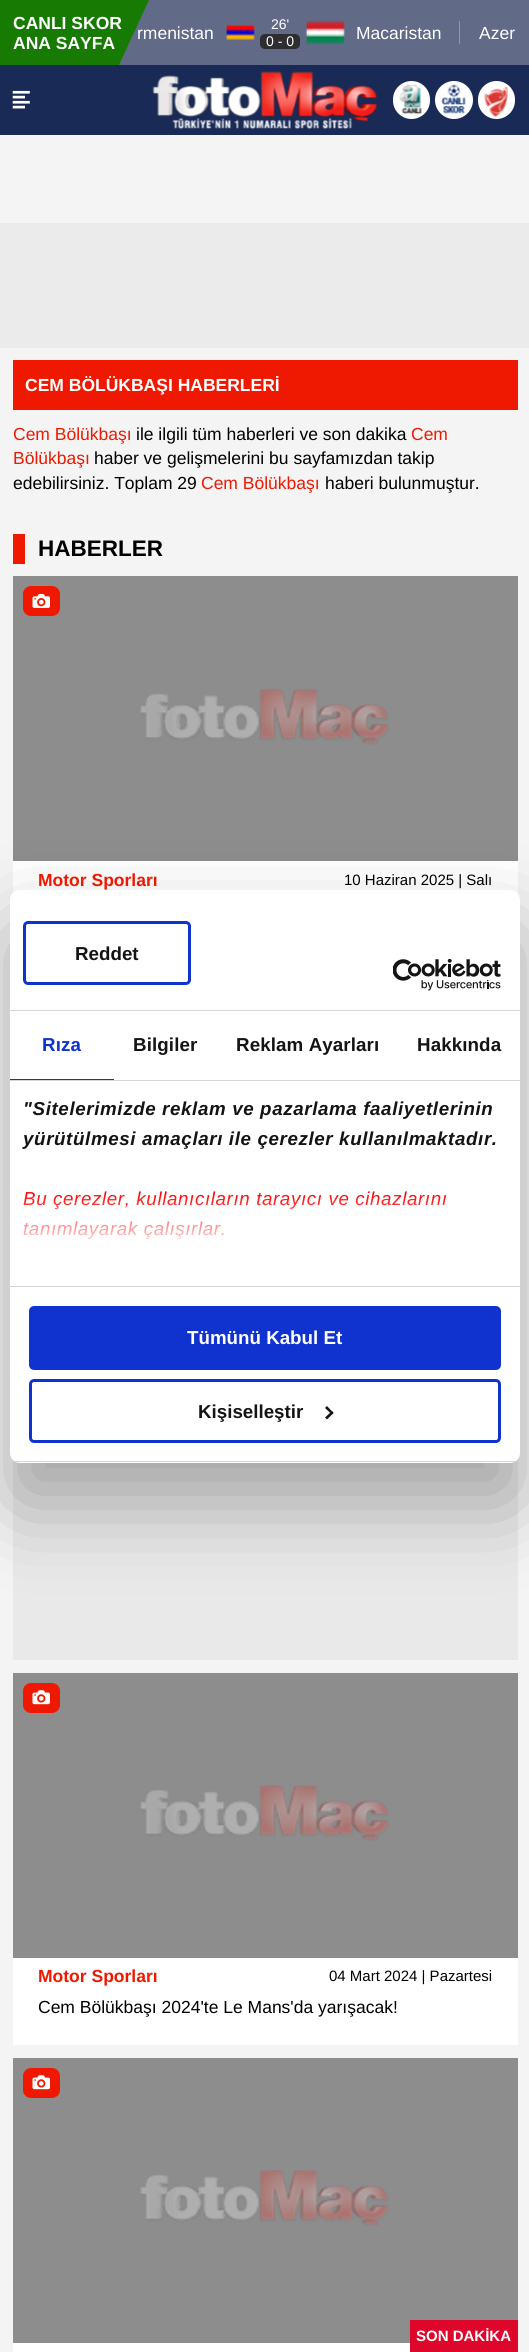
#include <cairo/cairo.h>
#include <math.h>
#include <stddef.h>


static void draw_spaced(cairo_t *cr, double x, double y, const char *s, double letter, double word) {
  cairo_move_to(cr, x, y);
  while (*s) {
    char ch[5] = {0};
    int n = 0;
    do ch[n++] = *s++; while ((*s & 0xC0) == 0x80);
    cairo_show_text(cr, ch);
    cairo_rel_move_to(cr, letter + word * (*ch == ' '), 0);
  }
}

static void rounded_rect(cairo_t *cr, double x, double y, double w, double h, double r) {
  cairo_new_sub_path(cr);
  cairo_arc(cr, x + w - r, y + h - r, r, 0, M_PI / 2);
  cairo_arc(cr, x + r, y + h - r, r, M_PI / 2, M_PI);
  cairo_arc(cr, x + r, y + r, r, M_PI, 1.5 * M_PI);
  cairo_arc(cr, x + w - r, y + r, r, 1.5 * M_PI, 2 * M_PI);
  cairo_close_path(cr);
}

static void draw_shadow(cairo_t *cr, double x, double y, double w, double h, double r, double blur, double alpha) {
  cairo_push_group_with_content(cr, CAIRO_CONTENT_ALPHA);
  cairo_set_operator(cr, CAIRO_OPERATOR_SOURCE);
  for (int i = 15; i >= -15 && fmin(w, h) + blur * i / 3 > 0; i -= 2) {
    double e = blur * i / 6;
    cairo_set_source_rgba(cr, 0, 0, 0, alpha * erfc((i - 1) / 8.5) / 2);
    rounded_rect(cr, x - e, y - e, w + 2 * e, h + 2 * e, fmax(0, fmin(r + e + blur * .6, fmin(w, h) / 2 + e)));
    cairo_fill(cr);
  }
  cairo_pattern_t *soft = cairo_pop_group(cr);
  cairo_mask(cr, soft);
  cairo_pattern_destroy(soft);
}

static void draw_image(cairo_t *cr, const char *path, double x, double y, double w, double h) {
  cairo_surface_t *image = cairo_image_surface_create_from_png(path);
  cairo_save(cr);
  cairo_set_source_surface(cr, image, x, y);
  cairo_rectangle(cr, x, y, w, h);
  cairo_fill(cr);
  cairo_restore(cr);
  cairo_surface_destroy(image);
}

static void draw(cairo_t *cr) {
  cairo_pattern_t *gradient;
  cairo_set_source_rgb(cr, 244 / 255.0, 244 / 255.0, 244 / 255.0);
  cairo_paint(cr);
  cairo_set_source_rgb(cr, 22 / 255.0, 122 / 255.0, 3 / 255.0);
  cairo_rectangle(cr, 0, 0, 13, 65);
  cairo_fill(cr);
  cairo_set_source_rgb(cr, 97 / 255.0, 107 / 255.0, 135 / 255.0);
  cairo_rectangle(cr, 119, 0, 410, 65);
  cairo_fill(cr);
  draw_image(cr, "images/1.png", 225, 24, 30, 16);
  cairo_set_source_rgb(cr, 46 / 255.0, 46 / 255.0, 49 / 255.0);
  rounded_rect(cr, 260, 34, 40, 15, 5);
  cairo_fill(cr);
  draw_image(cr, "images/2.png", 305, 20, 40, 25);
  cairo_set_source_rgb(cr, 144 / 255.0, 151 / 255.0, 171 / 255.0);
  cairo_rectangle(cr, 459, 21, 1, 23);
  cairo_fill(cr);
  cairo_set_source_rgb(cr, 25 / 255.0, 42 / 255.0, 86 / 255.0);
  cairo_rectangle(cr, 0, 65, 529, 70);
  cairo_fill(cr);
  draw_image(cr, "images/3.png", 12, 90, 18, 19);
  draw_image(cr, "images/4.png", 152, 71, 226, 59);
  cairo_set_source_rgb(cr, 1, 1, 1);
  rounded_rect(cr, 393, 81, 37, 38, 18.5);
  cairo_fill(cr);
  draw_image(cr, "images/5.png", 399, 84, 23, 31);
  cairo_arc(cr, 454, 100, 19, 0, 2 * M_PI);
  cairo_fill(cr);
  draw_image(cr, "images/6.png", 441, 84, 25, 30);
  rounded_rect(cr, 478, 81, 37, 38, 18.5);
  cairo_fill(cr);
  draw_image(cr, "images/7.png", 484, 87, 24, 30);
  cairo_set_source_rgb(cr, 235 / 255.0, 235 / 255.0, 236 / 255.0);
  cairo_rectangle(cr, 0, 223, 529, 125);
  cairo_fill(cr);
  cairo_set_source_rgb(cr, 238 / 255.0, 25 / 255.0, 0);
  cairo_rectangle(cr, 13, 360, 505, 50);
  cairo_fill(cr);
  cairo_rectangle(cr, 13, 534, 12, 30);
  cairo_fill(cr);
  cairo_set_source_rgb(cr, 1, 1, 1);
  cairo_rectangle(cr, 13, 861, 505, 33);
  cairo_fill(cr);
  cairo_set_source_rgb(cr, 141 / 255.0, 141 / 255.0, 141 / 255.0);
  cairo_rectangle(cr, 13, 576, 505, 285);
  cairo_fill(cr);
  draw_image(cr, "images/8.png", 140, 689, 249, 56);
  cairo_set_source_rgb(cr, 238 / 255.0, 25 / 255.0, 0);
  rounded_rect(cr, 23, 586, 37, 30, 8);
  cairo_fill(cr);
  draw_image(cr, "images/9.png", 32, 593, 18, 15);
  cairo_set_source_rgb(cr, 233 / 255.0, 233 / 255.0, 233 / 255.0);
  cairo_rectangle(cr, 13, 1459, 505, 201);
  cairo_fill(cr);
  cairo_set_source_rgb(cr, 1, 1, 1);
  cairo_rectangle(cr, 13, 1958, 505, 87);
  cairo_fill(cr);
  cairo_set_source_rgb(cr, 141 / 255.0, 141 / 255.0, 141 / 255.0);
  cairo_rectangle(cr, 13, 1673, 505, 285);
  cairo_fill(cr);
  draw_image(cr, "images/10.png", 140, 1785, 249, 56);
  cairo_set_source_rgb(cr, 238 / 255.0, 25 / 255.0, 0);
  rounded_rect(cr, 23, 1683, 37, 30, 8);
  cairo_fill(cr);
  draw_image(cr, "images/11.png", 32, 1690, 18, 15);
  cairo_set_source_rgb(cr, 1, 1, 1);
  cairo_rectangle(cr, 13, 2343, 397, 9);
  cairo_fill(cr);
  cairo_set_source_rgb(cr, 141 / 255.0, 141 / 255.0, 141 / 255.0);
  cairo_rectangle(cr, 13, 2058, 505, 285);
  cairo_fill(cr);
  draw_image(cr, "images/10.png", 140, 2170, 249, 56);
  cairo_set_source_rgb(cr, 238 / 255.0, 25 / 255.0, 0);
  rounded_rect(cr, 23, 2068, 37, 30, 8);
  cairo_fill(cr);
  draw_image(cr, "images/11.png", 32, 2075, 18, 15);
  cairo_set_source_rgb(cr, 0, 0, 0);
  draw_shadow(cr, 10, 930, 510, 573, 10, 42.5, 0.3);
  cairo_set_source_rgb(cr, 1, 1, 1);
  rounded_rect(cr, 10, 890, 510, 573, 10);
  cairo_fill(cr);
  cairo_save(cr);
  rounded_rect(cr, 10, 890, 510, 573, 10);
  cairo_clip(cr);
  cairo_set_source_rgb(cr, 214 / 255.0, 214 / 255.0, 214 / 255.0);
  cairo_rectangle(cr, 10, 1461, 510, 1);
  cairo_fill(cr);
  cairo_restore(cr);
  rounded_rect(cr, 24.5, 922.5, 165, 61, 3.5);
  cairo_set_source_rgb(cr, 16 / 255.0, 50 / 255.0, 207 / 255.0);
  cairo_set_line_width(cr, 3);
  cairo_stroke(cr);
  rounded_rect(cr, 30.5, 1307.5, 469, 61, 3.5);
  cairo_fill_preserve(cr);
  cairo_stroke(cr);
  rounded_rect(cr, 30.5, 1380.5, 469, 61, 3.5);
  cairo_stroke(cr);
  cairo_set_source_rgb(cr, 20 / 255.0, 20 / 255.0, 20 / 255.0);
  cairo_new_path(cr);
  cairo_move_to(cr, 327, 1406);
  cairo_line_to(cr, 333.5, 1413);
  cairo_line_to(cr, 332, 1414.5);
  cairo_line_to(cr, 325, 1408);
  cairo_close_path(cr);
  cairo_fill(cr);
  cairo_new_path(cr);
  cairo_move_to(cr, 332, 1411);
  cairo_line_to(cr, 333.5, 1413);
  cairo_line_to(cr, 327, 1419.5);
  cairo_line_to(cr, 325, 1417.5);
  cairo_close_path(cr);
  cairo_fill(cr);
  cairo_set_source_rgb(cr, 214 / 255.0, 214 / 255.0, 214 / 255.0);
  cairo_rectangle(cr, 10, 1010, 510, 1);
  cairo_fill(cr);
  draw_image(cr, "images/12.png", 393, 959, 108, 32);
  cairo_rectangle(cr, 10, 1080, 510, 1);
  cairo_fill(cr);
  cairo_set_source_rgb(cr, 16 / 255.0, 50 / 255.0, 207 / 255.0);
  cairo_rectangle(cr, 10, 1079, 104, 1);
  cairo_fill(cr);
  cairo_set_source_rgb(cr, 214 / 255.0, 214 / 255.0, 214 / 255.0);
  cairo_rectangle(cr, 10, 1286, 510, 1);
  cairo_fill(cr);
  cairo_set_source_rgb(cr, 223 / 255.0, 6 / 255.0, 44 / 255.0);
  cairo_rectangle(cr, 410, 2320, 108, 32);
  cairo_fill(cr);
  cairo_select_font_face(cr, "Liberation Sans", CAIRO_FONT_SLANT_NORMAL, CAIRO_FONT_WEIGHT_NORMAL);
  cairo_set_font_size(cr, 17.5);
  cairo_set_source_rgb(cr, 1, 1, 1);
  cairo_move_to(cr, 137, 39);
  cairo_show_text(cr, "rmenistan");
  cairo_save(cr);
  cairo_rectangle(cr, 13, 0, 505, 65);
  cairo_clip(cr);
  cairo_set_source_rgb(cr, 22 / 255.0, 122 / 255.0, 3 / 255.0);
  cairo_new_path(cr);
  cairo_move_to(cr, 3, 0);
  cairo_line_to(cr, 149, 0);
  cairo_line_to(cr, 119, 65);
  cairo_line_to(cr, -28, 65);
  cairo_close_path(cr);
  cairo_fill(cr);
  cairo_restore(cr);
  cairo_select_font_face(cr, "Liberation Sans", CAIRO_FONT_SLANT_NORMAL, CAIRO_FONT_WEIGHT_BOLD);
  cairo_move_to(cr, 13, 49);
  cairo_show_text(cr, "ANA SAYFA");
  cairo_move_to(cr, 13, 29);
  cairo_show_text(cr, "CANLI SKOR");
  cairo_select_font_face(cr, "Liberation Sans", CAIRO_FONT_SLANT_NORMAL, CAIRO_FONT_WEIGHT_NORMAL);
  cairo_set_font_size(cr, 14);
  cairo_move_to(cr, 271, 29);
  cairo_show_text(cr, "26'");
  cairo_move_to(cr, 266, 46);
  cairo_show_text(cr, "0 - 0");
  cairo_set_font_size(cr, 17.5);
  cairo_move_to(cr, 356, 39);
  cairo_show_text(cr, "Macaristan");
  cairo_move_to(cr, 479, 39);
  cairo_show_text(cr, "Azer");
  cairo_select_font_face(cr, "Liberation Sans", CAIRO_FONT_SLANT_NORMAL, CAIRO_FONT_WEIGHT_BOLD);
  cairo_move_to(cr, 25, 391);
  cairo_show_text(cr, "CEM BÖLÜKBAŞI HABERLERİ");
  cairo_select_font_face(cr, "Liberation Sans", CAIRO_FONT_SLANT_NORMAL, CAIRO_FONT_WEIGHT_NORMAL);
  cairo_set_source_rgb(cr, 238 / 255.0, 25 / 255.0, 0);
  cairo_move_to(cr, 13, 440);
  cairo_show_text(cr, "Cem Bölükbaşı");
  cairo_set_source_rgb(cr, 0, 0, 0);
  cairo_move_to(cr, 136, 440);
  cairo_show_text(cr, "ile ilgili tüm haberleri ve son dakika");
  cairo_set_source_rgb(cr, 238 / 255.0, 25 / 255.0, 0);
  cairo_move_to(cr, 411, 440);
  cairo_show_text(cr, "Cem");
  cairo_move_to(cr, 13, 464);
  cairo_show_text(cr, "Bölükbaşı");
  cairo_set_source_rgb(cr, 0, 0, 0);
  cairo_move_to(cr, 94, 464);
  cairo_show_text(cr, "haber ve gelişmelerini bu sayfamızdan takip");
  cairo_move_to(cr, 13, 489);
  cairo_show_text(cr, "edebilirsiniz. Toplam 29");
  cairo_set_source_rgb(cr, 238 / 255.0, 25 / 255.0, 0);
  cairo_move_to(cr, 201, 489);
  cairo_show_text(cr, "Cem Bölükbaşı");
  cairo_set_source_rgb(cr, 0, 0, 0);
  cairo_move_to(cr, 325, 489);
  cairo_show_text(cr, "haberi bulunmuştur.");
  cairo_select_font_face(cr, "Liberation Sans", CAIRO_FONT_SLANT_NORMAL, CAIRO_FONT_WEIGHT_BOLD);
  cairo_set_font_size(cr, 22.5);
  cairo_move_to(cr, 38, 556);
  cairo_show_text(cr, "HABERLER");
  cairo_set_font_size(cr, 17.5);
  cairo_set_source_rgb(cr, 238 / 255.0, 25 / 255.0, 0);
  cairo_move_to(cr, 38, 886);
  cairo_show_text(cr, "Motor Sporları");
  cairo_select_font_face(cr, "Liberation Sans", CAIRO_FONT_SLANT_NORMAL, CAIRO_FONT_WEIGHT_NORMAL);
  cairo_set_font_size(cr, 15);
  cairo_set_source_rgb(cr, 0, 0, 0);
  cairo_move_to(cr, 344, 885);
  cairo_show_text(cr, "10 Haziran 2025 | Salı");
  cairo_select_font_face(cr, "Liberation Sans", CAIRO_FONT_SLANT_NORMAL, CAIRO_FONT_WEIGHT_BOLD);
  cairo_set_font_size(cr, 17.5);
  cairo_set_source_rgb(cr, 238 / 255.0, 25 / 255.0, 0);
  cairo_move_to(cr, 38, 1982);
  cairo_show_text(cr, "Motor Sporları");
  cairo_select_font_face(cr, "Liberation Sans", CAIRO_FONT_SLANT_NORMAL, CAIRO_FONT_WEIGHT_NORMAL);
  cairo_set_font_size(cr, 15);
  cairo_set_source_rgb(cr, 0, 0, 0);
  cairo_move_to(cr, 329, 1981);
  cairo_show_text(cr, "04 Mart 2024 | Pazartesi");
  cairo_set_font_size(cr, 17.5);
  cairo_move_to(cr, 38, 2013);
  cairo_show_text(cr, "Cem Bölükbaşı 2024'te Le Mans'da yarışacak!");
  cairo_select_font_face(cr, "Liberation Sans", CAIRO_FONT_SLANT_NORMAL, CAIRO_FONT_WEIGHT_BOLD);
  cairo_set_font_size(cr, 18.75);
  cairo_set_source_rgb(cr, 20 / 255.0, 20 / 255.0, 20 / 255.0);
  cairo_move_to(cr, 75, 960);
  cairo_show_text(cr, "Reddet");
  cairo_set_source_rgb(cr, 1, 1, 1);
  cairo_move_to(cr, 187, 1344);
  cairo_show_text(cr, "Tümünü Kabul Et");
  cairo_set_source_rgb(cr, 20 / 255.0, 20 / 255.0, 20 / 255.0);
  cairo_move_to(cr, 198, 1418);
  cairo_show_text(cr, "Kişiselleştir");
  cairo_set_source_rgb(cr, 16 / 255.0, 50 / 255.0, 207 / 255.0);
  draw_spaced(cr, 42, 1051, "Rıza", 0.1, 0);
  cairo_set_source_rgb(cr, 20 / 255.0, 20 / 255.0, 20 / 255.0);
  draw_spaced(cr, 133, 1051, "Bilgiler", 0.1, 0);
  draw_spaced(cr, 236, 1051, "Reklam Ayarları", 0.1, 0);
  draw_spaced(cr, 417, 1051, "Hakkında", 0.1, 0);
  cairo_select_font_face(cr, "Liberation Sans", CAIRO_FONT_SLANT_ITALIC, CAIRO_FONT_WEIGHT_BOLD);
  draw_spaced(cr, 23, 1115, "\"Sitelerimizde reklam ve pazarlama faaliyetlerinin", 0.62, 0);
  draw_spaced(cr, 23, 1145, "yürütülmesi amaçları ile çerezler kullanılmaktadır.", 0.62, 0);
  cairo_select_font_face(cr, "Liberation Sans", CAIRO_FONT_SLANT_ITALIC, CAIRO_FONT_WEIGHT_NORMAL);
  cairo_set_source_rgb(cr, 1, 0, 0);
  draw_spaced(cr, 23, 1205, "Bu çerezler, kullanıcıların tarayıcı ve cihazlarını", 0.62, 0);
  draw_spaced(cr, 23, 1235, "tanımlayarak çalışırlar.", 0.62, 0);
  gradient = cairo_pattern_create_linear(257, 1286, 257, 1193);
  cairo_pattern_add_color_stop_rgba(gradient, 0, 1, 1, 1, 1);
  cairo_pattern_add_color_stop_rgba(gradient, 0.5, 1, 1, 1, 0.8);
  cairo_pattern_add_color_stop_rgba(gradient, 1, 1, 1, 1, 0);
  cairo_set_source(cr, gradient);
  cairo_pattern_destroy(gradient);
  cairo_rectangle(cr, 24, 1194, 423, 45);
  cairo_fill(cr);
  cairo_select_font_face(cr, "Liberation Sans", CAIRO_FONT_SLANT_NORMAL, CAIRO_FONT_WEIGHT_BOLD);
  cairo_set_font_size(cr, 15);
  cairo_set_source_rgb(cr, 1, 1, 1);
  cairo_move_to(cr, 416, 2341);
  cairo_show_text(cr, "SON DAKİKA");
}

int main(void) {
  cairo_surface_t *surface = cairo_image_surface_create(CAIRO_FORMAT_RGB24, 529, 2352);
  cairo_t *cr = cairo_create(surface);
  cairo_font_options_t *options = cairo_font_options_create();
  cairo_font_options_set_hint_metrics(options, CAIRO_HINT_METRICS_OFF);
  cairo_font_options_set_hint_style(options, CAIRO_HINT_STYLE_NONE);
  cairo_set_font_options(cr, options);
  cairo_set_miter_limit(cr, 4);
  draw(cr);
  cairo_surface_write_to_png(surface, "out.png");
  cairo_font_options_destroy(options);
  cairo_destroy(cr);
  cairo_surface_destroy(surface);
  return 0;
}
